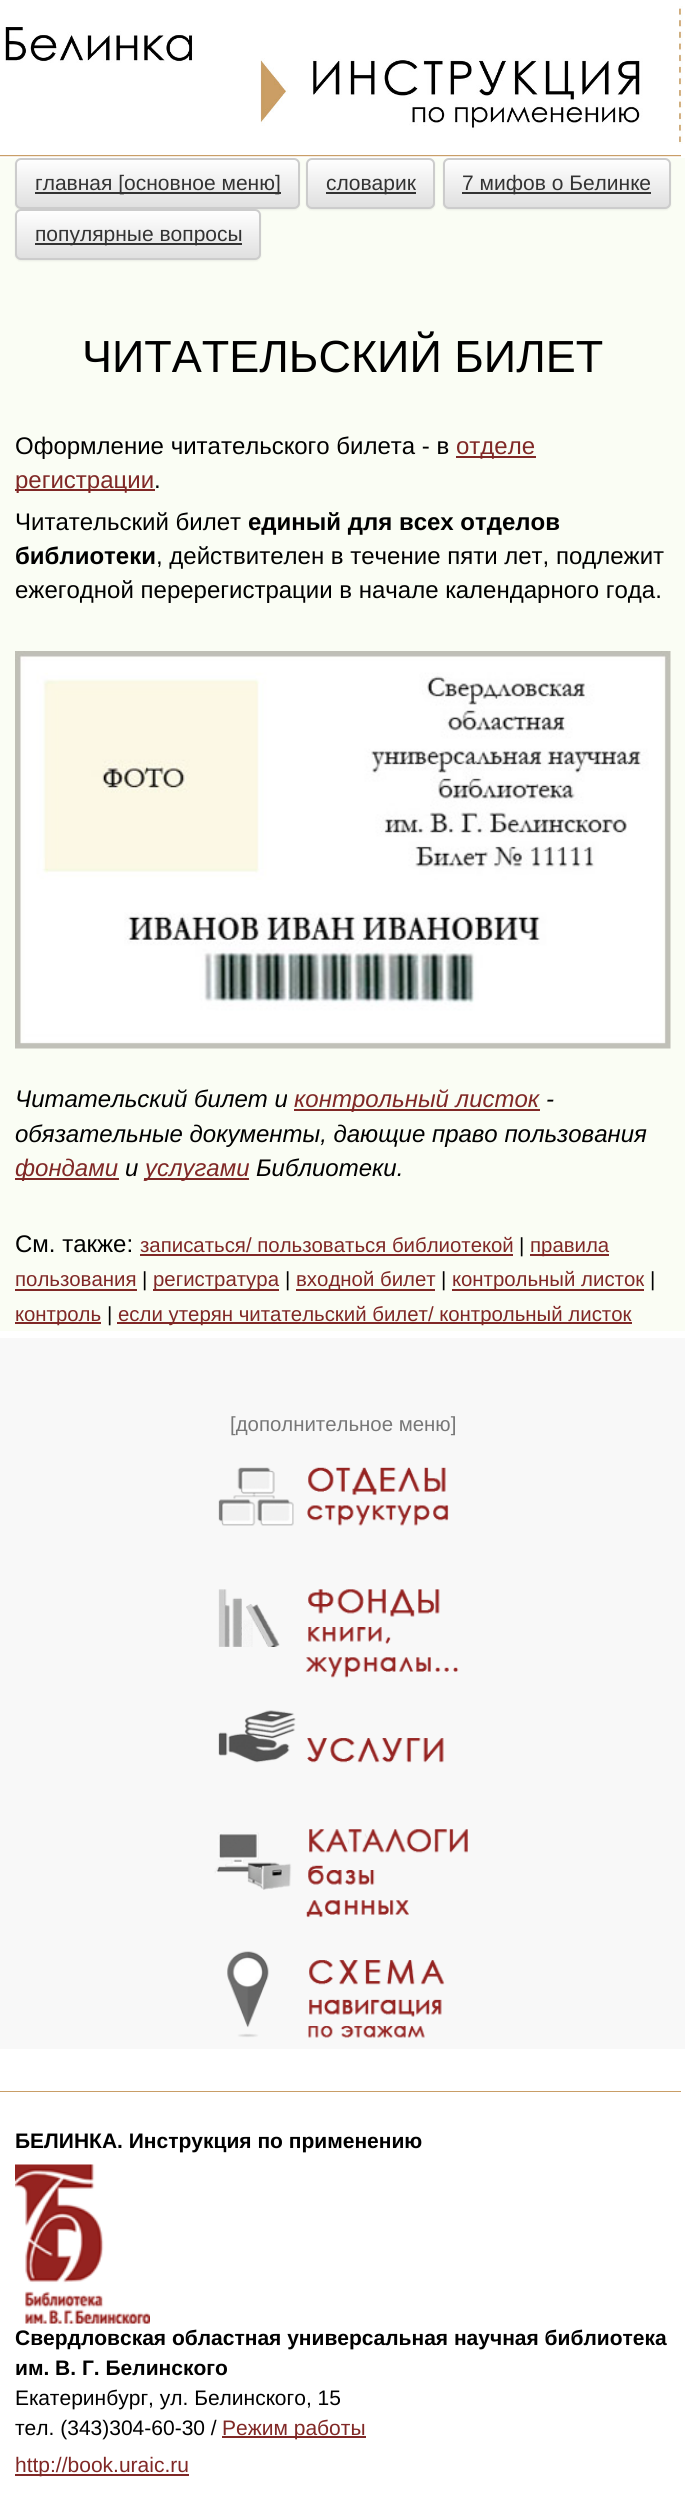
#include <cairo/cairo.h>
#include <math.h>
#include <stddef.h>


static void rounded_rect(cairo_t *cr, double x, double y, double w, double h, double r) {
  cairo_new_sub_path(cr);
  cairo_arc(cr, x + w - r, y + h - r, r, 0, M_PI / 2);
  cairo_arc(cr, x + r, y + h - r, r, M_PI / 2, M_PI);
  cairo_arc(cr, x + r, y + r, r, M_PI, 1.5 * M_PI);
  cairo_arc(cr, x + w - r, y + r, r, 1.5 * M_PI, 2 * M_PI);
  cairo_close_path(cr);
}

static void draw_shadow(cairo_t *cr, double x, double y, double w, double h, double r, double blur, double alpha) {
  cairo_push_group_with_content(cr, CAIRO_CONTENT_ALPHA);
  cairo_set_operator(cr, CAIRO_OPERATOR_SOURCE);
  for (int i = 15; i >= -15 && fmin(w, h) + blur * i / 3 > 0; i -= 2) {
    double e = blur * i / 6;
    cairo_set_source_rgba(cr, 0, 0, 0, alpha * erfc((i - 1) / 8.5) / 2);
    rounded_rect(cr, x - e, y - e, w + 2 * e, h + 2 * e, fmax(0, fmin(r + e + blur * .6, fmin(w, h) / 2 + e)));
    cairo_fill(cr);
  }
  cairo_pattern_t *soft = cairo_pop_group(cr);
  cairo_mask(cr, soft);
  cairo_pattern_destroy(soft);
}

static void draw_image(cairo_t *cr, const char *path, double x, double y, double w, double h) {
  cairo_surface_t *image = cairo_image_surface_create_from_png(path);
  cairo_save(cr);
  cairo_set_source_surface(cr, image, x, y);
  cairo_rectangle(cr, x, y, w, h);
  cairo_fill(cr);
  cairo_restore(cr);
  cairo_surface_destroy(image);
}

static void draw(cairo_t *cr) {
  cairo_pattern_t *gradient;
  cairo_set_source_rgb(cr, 1, 1, 1);
  cairo_paint(cr);
  draw_image(cr, "images/1.png", 5, 6, 678, 138);
  draw_image(cr, "images/2.png", 0, 155, 681, 2);
  cairo_set_source_rgb(cr, 250 / 255.0, 253 / 255.0, 244 / 255.0);
  cairo_rectangle(cr, 0, 158, 685, 1173);
  cairo_fill(cr);
  cairo_set_source_rgb(cr, 0, 0, 0);
  draw_shadow(cr, 15, 159, 285, 51, 6, 1, 0.07);
  cairo_save(cr);
  rounded_rect(cr, 15, 158, 285, 51, 6);
  cairo_clip(cr);
  gradient = cairo_pattern_create_linear(158, 159, 158, 207);
  cairo_pattern_add_color_stop_rgba(gradient, 0, 1, 1, 1, 1);
  cairo_pattern_add_color_stop_rgba(gradient, 1, 224 / 255.0, 224 / 255.0, 224 / 255.0, 1);
  cairo_set_source(cr, gradient);
  cairo_pattern_destroy(gradient);
  cairo_rectangle(cr, 15, 159, 285, 48);
  cairo_fill(cr);
  cairo_restore(cr);
  cairo_set_source_rgba(cr, 1, 1, 1, 0.15);
  cairo_new_path(cr);
  cairo_move_to(cr, 21, 160);
  cairo_line_to(cr, 294, 160);
  cairo_curve_to(cr, 296, 160, 298, 163, 298, 165);
  cairo_line_to(cr, 298, 205);
  cairo_curve_to(cr, 299, 204, 299, 203, 299, 202);
  cairo_line_to(cr, 299, 164);
  cairo_curve_to(cr, 299, 161, 297, 159, 294, 159);
  cairo_line_to(cr, 22, 159);
  cairo_curve_to(cr, 20, 159, 18, 160, 17, 162);
  cairo_curve_to(cr, 18, 161, 20, 160, 21, 160);
  cairo_close_path(cr);
  cairo_fill(cr);
  rounded_rect(cr, 16, 159, 283, 49, 5);
  cairo_set_source_rgb(cr, 204 / 255.0, 204 / 255.0, 204 / 255.0);
  cairo_stroke(cr);
  cairo_set_source_rgb(cr, 51 / 255.0, 51 / 255.0, 51 / 255.0);
  cairo_rectangle(cr, 35, 192, 246, 2);
  cairo_fill(cr);
  cairo_set_source_rgb(cr, 0, 0, 0);
  draw_shadow(cr, 306, 159, 129, 51, 6, 1, 0.07);
  cairo_save(cr);
  rounded_rect(cr, 306, 158, 129, 51, 6);
  cairo_clip(cr);
  gradient = cairo_pattern_create_linear(371, 159, 371, 207);
  cairo_pattern_add_color_stop_rgba(gradient, 0, 1, 1, 1, 1);
  cairo_pattern_add_color_stop_rgba(gradient, 1, 224 / 255.0, 224 / 255.0, 224 / 255.0, 1);
  cairo_set_source(cr, gradient);
  cairo_pattern_destroy(gradient);
  cairo_rectangle(cr, 306, 159, 129, 48);
  cairo_fill(cr);
  cairo_restore(cr);
  cairo_set_source_rgb(cr, 1, 1, 1);
  cairo_new_path(cr);
  cairo_move_to(cr, 312, 160);
  cairo_line_to(cr, 429, 160);
  cairo_curve_to(cr, 431, 160, 434, 163, 434, 165);
  cairo_curve_to(cr, 434, 154, 414, 159, 410, 159);
  cairo_line_to(cr, 332, 159);
  cairo_curve_to(cr, 328, 159, 308, 154, 308, 165);
  cairo_curve_to(cr, 308, 163, 310, 160, 312, 160);
  cairo_close_path(cr);
  cairo_fill(cr);
  rounded_rect(cr, 307, 159, 127, 49, 5);
  cairo_set_source_rgb(cr, 204 / 255.0, 204 / 255.0, 204 / 255.0);
  cairo_stroke(cr);
  cairo_set_source_rgb(cr, 51 / 255.0, 51 / 255.0, 51 / 255.0);
  cairo_rectangle(cr, 326, 192, 90, 2);
  cairo_fill(cr);
  cairo_set_source_rgb(cr, 0, 0, 0);
  draw_shadow(cr, 443, 159, 228, 51, 6, 1, 0.07);
  cairo_save(cr);
  rounded_rect(cr, 443, 158, 228, 51, 6);
  cairo_clip(cr);
  gradient = cairo_pattern_create_linear(557, 159, 557, 207);
  cairo_pattern_add_color_stop_rgba(gradient, 0, 1, 1, 1, 1);
  cairo_pattern_add_color_stop_rgba(gradient, 1, 224 / 255.0, 224 / 255.0, 224 / 255.0, 1);
  cairo_set_source(cr, gradient);
  cairo_pattern_destroy(gradient);
  cairo_rectangle(cr, 443, 159, 228, 48);
  cairo_fill(cr);
  cairo_restore(cr);
  rounded_rect(cr, 444, 159, 226, 49, 5);
  cairo_set_source_rgb(cr, 204 / 255.0, 204 / 255.0, 204 / 255.0);
  cairo_stroke(cr);
  cairo_set_source_rgb(cr, 51 / 255.0, 51 / 255.0, 51 / 255.0);
  cairo_rectangle(cr, 462, 192, 189, 2);
  cairo_fill(cr);
  cairo_set_source_rgb(cr, 0, 0, 0);
  draw_shadow(cr, 15, 210, 246, 51, 6, 1, 0.07);
  cairo_save(cr);
  rounded_rect(cr, 15, 209, 246, 51, 6);
  cairo_clip(cr);
  gradient = cairo_pattern_create_linear(138, 210, 138, 258);
  cairo_pattern_add_color_stop_rgba(gradient, 0, 1, 1, 1, 1);
  cairo_pattern_add_color_stop_rgba(gradient, 1, 224 / 255.0, 224 / 255.0, 224 / 255.0, 1);
  cairo_set_source(cr, gradient);
  cairo_pattern_destroy(gradient);
  cairo_rectangle(cr, 15, 210, 246, 48);
  cairo_fill(cr);
  cairo_restore(cr);
  rounded_rect(cr, 16, 210, 244, 49, 5);
  cairo_set_source_rgb(cr, 204 / 255.0, 204 / 255.0, 204 / 255.0);
  cairo_stroke(cr);
  cairo_set_source_rgb(cr, 51 / 255.0, 51 / 255.0, 51 / 255.0);
  cairo_rectangle(cr, 35, 243, 207, 2);
  cairo_fill(cr);
  cairo_set_source_rgb(cr, 128 / 255.0, 40 / 255.0, 38 / 255.0);
  cairo_rectangle(cr, 456, 456, 80, 2);
  cairo_fill(cr);
  cairo_rectangle(cr, 15, 489, 140, 2);
  cairo_fill(cr);
  draw_image(cr, "images/3.png", 15, 651, 656, 398);
  cairo_rectangle(cr, 294, 1109, 246, 2);
  cairo_fill(cr);
  cairo_rectangle(cr, 15, 1178, 104, 2);
  cairo_fill(cr);
  cairo_rectangle(cr, 144, 1178, 105, 2);
  cairo_fill(cr);
  cairo_rectangle(cr, 140, 1254, 373, 2);
  cairo_fill(cr);
  cairo_rectangle(cr, 530, 1254, 79, 2);
  cairo_fill(cr);
  cairo_rectangle(cr, 15, 1289, 122, 2);
  cairo_fill(cr);
  cairo_rectangle(cr, 153, 1289, 126, 2);
  cairo_fill(cr);
  cairo_rectangle(cr, 296, 1289, 139, 2);
  cairo_fill(cr);
  cairo_rectangle(cr, 452, 1289, 192, 2);
  cairo_fill(cr);
  cairo_rectangle(cr, 15, 1322, 86, 2);
  cairo_fill(cr);
  cairo_rectangle(cr, 117, 1322, 515, 2);
  cairo_fill(cr);
  cairo_set_source_rgb(cr, 248 / 255.0, 248 / 255.0, 248 / 255.0);
  cairo_rectangle(cr, 0, 1338, 685, 711);
  cairo_fill(cr);
  draw_image(cr, "images/4.png", 218, 1467, 231, 59);
  draw_image(cr, "images/5.png", 218, 1589, 241, 89);
  draw_image(cr, "images/6.png", 218, 1710, 226, 53);
  draw_image(cr, "images/7.png", 214, 1829, 254, 89);
  draw_image(cr, "images/8.png", 227, 1951, 218, 87);
  cairo_set_source_rgb(cr, 201 / 255.0, 158 / 255.0, 103 / 255.0);
  cairo_rectangle(cr, 0, 2091, 681, 1);
  cairo_fill(cr);
  draw_image(cr, "images/9.png", 15, 2164, 135, 160);
  cairo_set_source_rgb(cr, 128 / 255.0, 40 / 255.0, 38 / 255.0);
  cairo_rectangle(cr, 222, 2436, 144, 2);
  cairo_fill(cr);
  cairo_rectangle(cr, 15, 2474, 174, 2);
  cairo_fill(cr);
  cairo_select_font_face(cr, "Liberation Sans", CAIRO_FONT_SLANT_NORMAL, CAIRO_FONT_WEIGHT_NORMAL);
  cairo_set_font_size(cr, 21);
  cairo_set_source_rgb(cr, 51 / 255.0, 51 / 255.0, 51 / 255.0);
  cairo_move_to(cr, 35, 190);
  cairo_show_text(cr, "главная [основное меню]");
  cairo_move_to(cr, 326, 190);
  cairo_show_text(cr, "словарик");
  cairo_move_to(cr, 462, 190);
  cairo_show_text(cr, "7 мифов о Белинке");
  cairo_move_to(cr, 35, 241);
  cairo_show_text(cr, "популярные вопросы");
  cairo_set_font_size(cr, 45);
  cairo_set_source_rgb(cr, 0, 0, 0);
  cairo_move_to(cr, 82, 372);
  cairo_show_text(cr, "ЧИТАТЕЛЬСКИЙ БИЛЕТ");
  cairo_set_font_size(cr, 24);
  cairo_move_to(cr, 15, 454);
  cairo_show_text(cr, "Оформление читательского билета - в");
  cairo_set_source_rgb(cr, 128 / 255.0, 40 / 255.0, 38 / 255.0);
  cairo_move_to(cr, 456, 454);
  cairo_show_text(cr, "отделе");
  cairo_move_to(cr, 15, 488);
  cairo_show_text(cr, "регистрации");
  cairo_set_source_rgb(cr, 0, 0, 0);
  cairo_move_to(cr, 154, 488);
  cairo_show_text(cr, ".");
  cairo_move_to(cr, 15, 530);
  cairo_show_text(cr, "Читательский билет");
  cairo_select_font_face(cr, "Liberation Sans", CAIRO_FONT_SLANT_NORMAL, CAIRO_FONT_WEIGHT_BOLD);
  cairo_move_to(cr, 248, 530);
  cairo_show_text(cr, "единый для всех отделов");
  cairo_move_to(cr, 15, 564);
  cairo_show_text(cr, "библиотеки");
  cairo_select_font_face(cr, "Liberation Sans", CAIRO_FONT_SLANT_NORMAL, CAIRO_FONT_WEIGHT_NORMAL);
  cairo_move_to(cr, 156, 564);
  cairo_show_text(cr, ", действителен в течение пяти лет, подлежит");
  cairo_move_to(cr, 15, 598);
  cairo_show_text(cr, "ежегодной перерегистрации в начале календарного года.");
  cairo_select_font_face(cr, "Liberation Sans", CAIRO_FONT_SLANT_ITALIC, CAIRO_FONT_WEIGHT_NORMAL);
  cairo_move_to(cr, 15, 1107);
  cairo_show_text(cr, "Читательский билет и");
  cairo_set_source_rgb(cr, 128 / 255.0, 40 / 255.0, 38 / 255.0);
  cairo_move_to(cr, 294, 1107);
  cairo_show_text(cr, "контрольный листок");
  cairo_set_source_rgb(cr, 0, 0, 0);
  cairo_move_to(cr, 546, 1107);
  cairo_show_text(cr, "-");
  cairo_move_to(cr, 15, 1142);
  cairo_show_text(cr, "обязательные документы, дающие право пользования");
  cairo_set_source_rgb(cr, 128 / 255.0, 40 / 255.0, 38 / 255.0);
  cairo_move_to(cr, 15, 1176);
  cairo_show_text(cr, "фондами");
  cairo_set_source_rgb(cr, 0, 0, 0);
  cairo_move_to(cr, 125, 1176);
  cairo_show_text(cr, "и");
  cairo_set_source_rgb(cr, 128 / 255.0, 40 / 255.0, 38 / 255.0);
  cairo_move_to(cr, 145, 1176);
  cairo_show_text(cr, "услугами");
  cairo_set_source_rgb(cr, 0, 0, 0);
  cairo_move_to(cr, 256, 1176);
  cairo_show_text(cr, "Библиотеки.");
  cairo_select_font_face(cr, "Liberation Sans", CAIRO_FONT_SLANT_NORMAL, CAIRO_FONT_WEIGHT_NORMAL);
  cairo_move_to(cr, 15, 1252);
  cairo_show_text(cr, "См. также:");
  cairo_set_font_size(cr, 20.4);
  cairo_set_source_rgb(cr, 128 / 255.0, 40 / 255.0, 38 / 255.0);
  cairo_move_to(cr, 140, 1252);
  cairo_show_text(cr, "записаться/ пользоваться библиотекой");
  cairo_set_source_rgb(cr, 0, 0, 0);
  cairo_move_to(cr, 519, 1252);
  cairo_show_text(cr, "|");
  cairo_set_source_rgb(cr, 128 / 255.0, 40 / 255.0, 38 / 255.0);
  cairo_move_to(cr, 530, 1252);
  cairo_show_text(cr, "правила");
  cairo_move_to(cr, 15, 1286);
  cairo_show_text(cr, "пользования");
  cairo_set_source_rgb(cr, 0, 0, 0);
  cairo_move_to(cr, 142, 1286);
  cairo_show_text(cr, "|");
  cairo_set_source_rgb(cr, 128 / 255.0, 40 / 255.0, 38 / 255.0);
  cairo_move_to(cr, 153, 1286);
  cairo_show_text(cr, "регистратура");
  cairo_set_source_rgb(cr, 0, 0, 0);
  cairo_move_to(cr, 285, 1286);
  cairo_show_text(cr, "|");
  cairo_set_source_rgb(cr, 128 / 255.0, 40 / 255.0, 38 / 255.0);
  cairo_move_to(cr, 296, 1286);
  cairo_show_text(cr, "входной билет");
  cairo_set_source_rgb(cr, 0, 0, 0);
  cairo_move_to(cr, 441, 1286);
  cairo_show_text(cr, "|");
  cairo_set_source_rgb(cr, 128 / 255.0, 40 / 255.0, 38 / 255.0);
  cairo_move_to(cr, 452, 1286);
  cairo_show_text(cr, "контрольный листок");
  cairo_set_source_rgb(cr, 0, 0, 0);
  cairo_move_to(cr, 650, 1286);
  cairo_show_text(cr, "|");
  cairo_set_source_rgb(cr, 128 / 255.0, 40 / 255.0, 38 / 255.0);
  cairo_move_to(cr, 15, 1321);
  cairo_show_text(cr, "контроль");
  cairo_set_source_rgb(cr, 0, 0, 0);
  cairo_move_to(cr, 107, 1321);
  cairo_show_text(cr, "|");
  cairo_set_source_rgb(cr, 128 / 255.0, 40 / 255.0, 38 / 255.0);
  cairo_move_to(cr, 118, 1321);
  cairo_show_text(cr, "если утерян читательский билет/ контрольный листок");
  cairo_set_source_rgb(cr, 119 / 255.0, 119 / 255.0, 119 / 255.0);
  cairo_move_to(cr, 230, 1431);
  cairo_show_text(cr, "[дополнительное меню]");
  cairo_select_font_face(cr, "Liberation Sans", CAIRO_FONT_SLANT_NORMAL, CAIRO_FONT_WEIGHT_BOLD);
  cairo_set_font_size(cr, 21);
  cairo_set_source_rgb(cr, 0, 0, 0);
  cairo_move_to(cr, 15, 2148);
  cairo_show_text(cr, "БЕЛИНКА. Инструкция по применению");
  cairo_move_to(cr, 15, 2345);
  cairo_show_text(cr, "Свердловская областная универсальная научная библиотека");
  cairo_move_to(cr, 15, 2375);
  cairo_show_text(cr, "им. В. Г. Белинского");
  cairo_select_font_face(cr, "Liberation Sans", CAIRO_FONT_SLANT_NORMAL, CAIRO_FONT_WEIGHT_NORMAL);
  cairo_move_to(cr, 15, 2405);
  cairo_show_text(cr, "Екатеринбург, ул. Белинского, 15");
  cairo_move_to(cr, 15, 2435);
  cairo_show_text(cr, "тел. (343)304-60-30 /");
  cairo_set_source_rgb(cr, 128 / 255.0, 40 / 255.0, 38 / 255.0);
  cairo_move_to(cr, 222, 2435);
  cairo_show_text(cr, "Режим работы");
  cairo_move_to(cr, 15, 2472);
  cairo_show_text(cr, "http://book.uraic.ru");
}

int main(void) {
  cairo_surface_t *surface = cairo_image_surface_create(CAIRO_FORMAT_RGB24, 685, 2501);
  cairo_t *cr = cairo_create(surface);
  cairo_font_options_t *options = cairo_font_options_create();
  cairo_font_options_set_hint_metrics(options, CAIRO_HINT_METRICS_OFF);
  cairo_font_options_set_hint_style(options, CAIRO_HINT_STYLE_NONE);
  cairo_set_font_options(cr, options);
  cairo_set_miter_limit(cr, 4);
  draw(cr);
  cairo_surface_write_to_png(surface, "out.png");
  cairo_font_options_destroy(options);
  cairo_destroy(cr);
  cairo_surface_destroy(surface);
  return 0;
}
